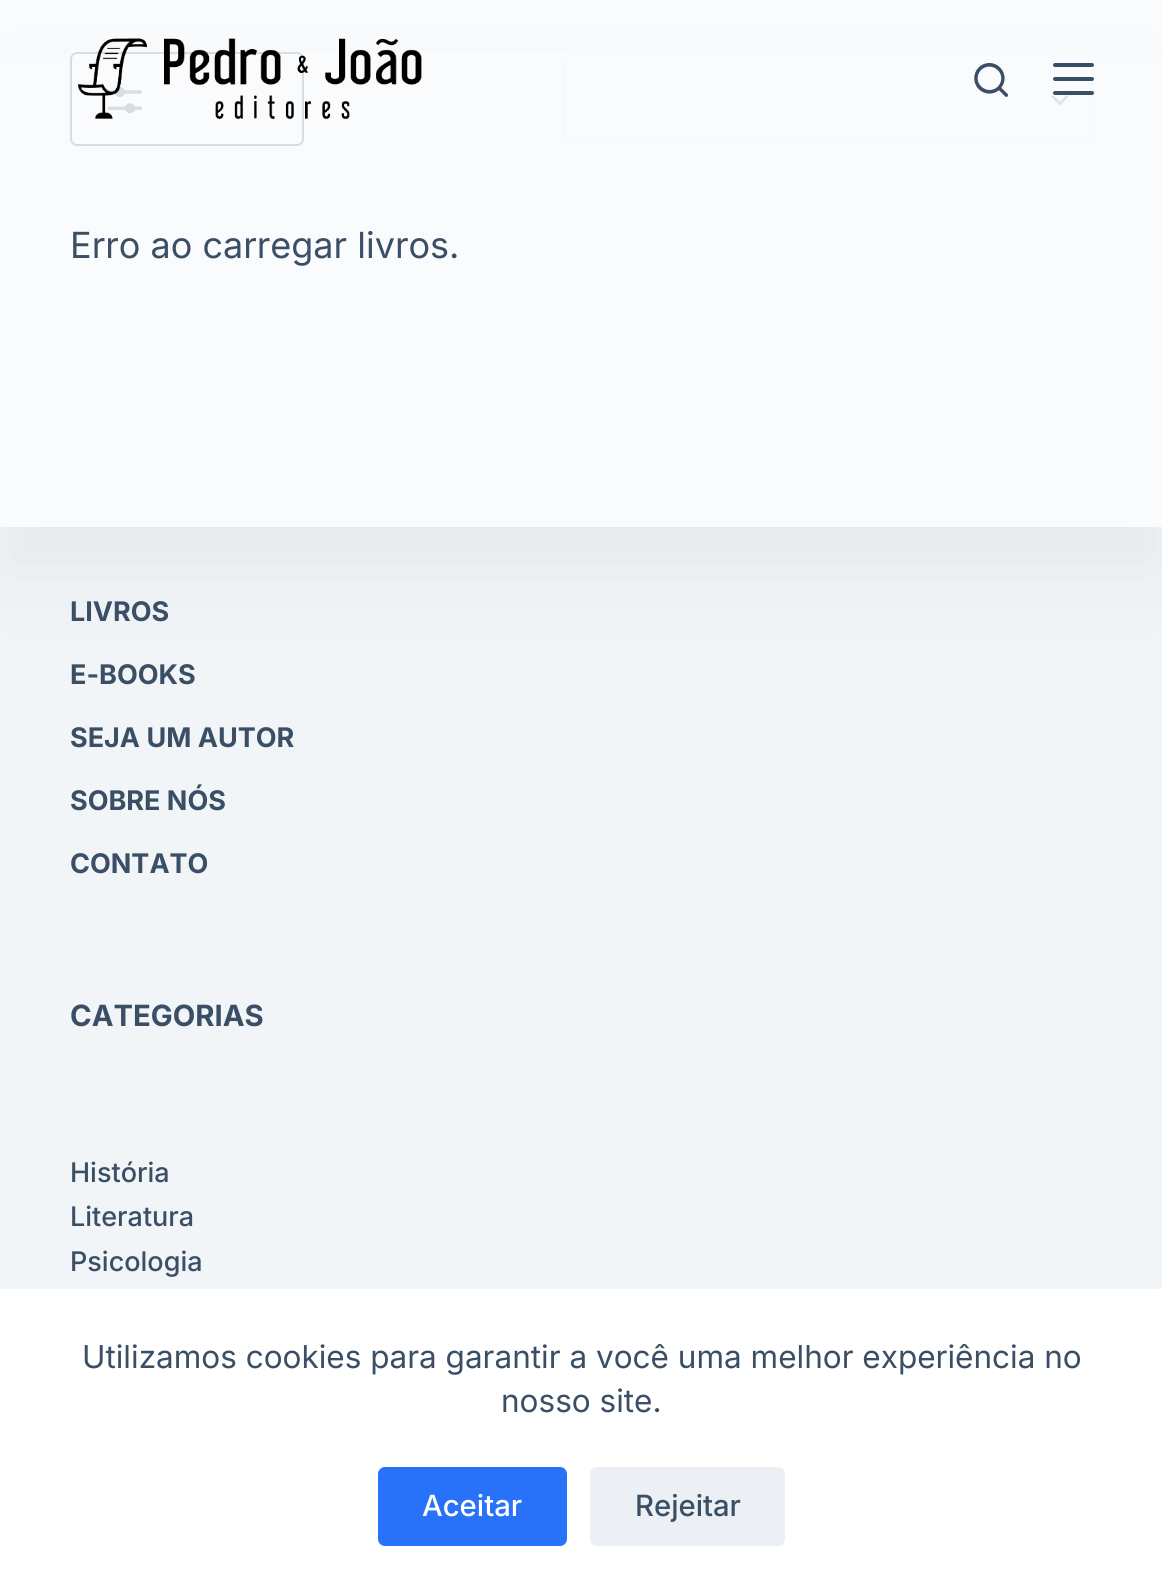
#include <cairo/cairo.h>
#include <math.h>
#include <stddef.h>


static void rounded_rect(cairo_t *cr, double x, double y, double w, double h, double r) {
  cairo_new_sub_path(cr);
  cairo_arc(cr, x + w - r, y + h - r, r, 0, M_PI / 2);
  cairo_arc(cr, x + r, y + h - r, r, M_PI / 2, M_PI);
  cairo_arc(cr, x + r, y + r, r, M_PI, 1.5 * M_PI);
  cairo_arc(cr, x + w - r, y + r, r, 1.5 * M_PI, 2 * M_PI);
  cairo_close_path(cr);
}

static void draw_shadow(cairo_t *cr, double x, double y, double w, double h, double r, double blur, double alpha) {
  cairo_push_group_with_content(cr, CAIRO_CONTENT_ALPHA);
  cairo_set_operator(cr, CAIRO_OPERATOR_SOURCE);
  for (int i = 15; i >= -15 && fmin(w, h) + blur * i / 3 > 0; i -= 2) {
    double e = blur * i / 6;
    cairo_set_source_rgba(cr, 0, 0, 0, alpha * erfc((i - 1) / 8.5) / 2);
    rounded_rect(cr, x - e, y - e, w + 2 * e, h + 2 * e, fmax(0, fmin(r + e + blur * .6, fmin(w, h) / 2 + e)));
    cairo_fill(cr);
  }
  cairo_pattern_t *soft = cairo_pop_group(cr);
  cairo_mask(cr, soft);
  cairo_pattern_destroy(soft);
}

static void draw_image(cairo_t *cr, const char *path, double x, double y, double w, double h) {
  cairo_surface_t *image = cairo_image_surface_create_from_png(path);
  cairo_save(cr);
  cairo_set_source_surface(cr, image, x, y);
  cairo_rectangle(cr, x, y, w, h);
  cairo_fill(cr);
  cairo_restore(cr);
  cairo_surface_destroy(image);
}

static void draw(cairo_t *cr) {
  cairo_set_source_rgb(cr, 250 / 255.0, 251 / 255.0, 252 / 255.0);
  cairo_paint(cr);
  cairo_set_source_rgb(cr, 242 / 255.0, 245 / 255.0, 247 / 255.0);
  cairo_rectangle(cr, 0, 527, 1162, 762);
  cairo_fill(cr);
  cairo_set_source_rgb(cr, 25 / 255.0, 42 / 255.0, 61 / 255.0);
  draw_shadow(cr, 0, 97, 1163, 475, 0, 45, 0.06);
  cairo_set_source_rgb(cr, 250 / 255.0, 251 / 255.0, 252 / 255.0);
  cairo_rectangle(cr, 0, 58, 1162, 469);
  cairo_fill(cr);
  rounded_rect(cr, 71, 53, 232, 92, 6);
  cairo_set_source_rgb(cr, 25 / 255.0, 42 / 255.0, 61 / 255.0);
  cairo_stroke(cr);
  draw_image(cr, "images/3.png", 108, 87, 34, 27);
  cairo_set_source_rgb(cr, 79 / 255.0, 93 / 255.0, 109 / 255.0);
  cairo_new_path(cr);
  cairo_move_to(cr, 1066.5, 95);
  cairo_line_to(cr, 1068.5, 96.5);
  cairo_line_to(cr, 1060, 105.5);
  cairo_line_to(cr, 1051, 96.5);
  cairo_line_to(cr, 1053, 95);
  cairo_line_to(cr, 1060, 101.5);
  cairo_close_path(cr);
  cairo_fill(cr);
  rounded_rect(cr, 564, 55, 529, 88, 8);
  cairo_set_source_rgb(cr, 225 / 255.0, 232 / 255.0, 237 / 255.0);
  cairo_stroke(cr);
  cairo_set_source_rgba(cr, 250 / 255.0, 251 / 255.0, 252 / 255.0, 0.85);
  cairo_rectangle(cr, 70, 52, 1024, 94);
  cairo_fill(cr);
  draw_image(cr, "images/1.png", 78, 38, 344, 82);
  draw_image(cr, "images/2.png", 974, 63, 34, 34);
  cairo_set_source_rgb(cr, 58 / 255.0, 79 / 255.0, 102 / 255.0);
  rounded_rect(cr, 1053, 63, 41, 4, 2);
  cairo_fill(cr);
  rounded_rect(cr, 1053, 77, 41, 4, 2);
  cairo_fill(cr);
  rounded_rect(cr, 1053, 91, 41, 4, 2);
  cairo_fill(cr);
  cairo_set_source_rgb(cr, 1, 1, 1);
  cairo_rectangle(cr, 0, 1289, 1162, 301);
  cairo_fill(cr);
  cairo_set_source_rgb(cr, 40 / 255.0, 114 / 255.0, 250 / 255.0);
  rounded_rect(cr, 378, 1467, 189, 79, 7);
  cairo_fill(cr);
  cairo_set_source_rgb(cr, 236 / 255.0, 239 / 255.0, 243 / 255.0);
  rounded_rect(cr, 590, 1467, 195, 79, 7);
  cairo_fill(cr);
  cairo_select_font_face(cr, "Inter", CAIRO_FONT_SLANT_NORMAL, CAIRO_FONT_WEIGHT_NORMAL);
  cairo_set_font_size(cr, 36);
  cairo_set_source_rgb(cr, 58 / 255.0, 79 / 255.0, 102 / 255.0);
  cairo_move_to(cr, 70, 258);
  cairo_show_text(cr, "Erro ao carregar livros.");
  cairo_select_font_face(cr, "Inter", CAIRO_FONT_SLANT_NORMAL, CAIRO_FONT_WEIGHT_BOLD);
  cairo_set_font_size(cr, 27);
  cairo_move_to(cr, 70, 621);
  cairo_show_text(cr, "LIVROS");
  cairo_move_to(cr, 70, 684);
  cairo_show_text(cr, "E-BOOKS");
  cairo_move_to(cr, 70, 747);
  cairo_show_text(cr, "SEJA UM AUTOR");
  cairo_move_to(cr, 70, 810);
  cairo_show_text(cr, "SOBRE NÓS");
  cairo_move_to(cr, 70, 873);
  cairo_show_text(cr, "CONTATO");
  cairo_set_font_size(cr, 29.25);
  cairo_move_to(cr, 70, 1026);
  cairo_show_text(cr, "CATEGORIAS");
  cairo_select_font_face(cr, "Inter Medium", CAIRO_FONT_SLANT_NORMAL, CAIRO_FONT_WEIGHT_NORMAL);
  cairo_set_font_size(cr, 27);
  cairo_move_to(cr, 70, 1182);
  cairo_show_text(cr, "História");
  cairo_move_to(cr, 70, 1226);
  cairo_show_text(cr, "Literatura");
  cairo_move_to(cr, 70, 1271);
  cairo_show_text(cr, "Psicologia");
  cairo_select_font_face(cr, "Inter", CAIRO_FONT_SLANT_NORMAL, CAIRO_FONT_WEIGHT_NORMAL);
  cairo_set_font_size(cr, 31.5);
  cairo_move_to(cr, 82, 1368);
  cairo_show_text(cr, "Utilizamos cookies para garantir a você uma melhor experiência no");
  cairo_move_to(cr, 501, 1412);
  cairo_show_text(cr, "nosso site.");
  cairo_select_font_face(cr, "Inter Medium", CAIRO_FONT_SLANT_NORMAL, CAIRO_FONT_WEIGHT_NORMAL);
  cairo_set_font_size(cr, 29.25);
  cairo_set_source_rgb(cr, 1, 1, 1);
  cairo_move_to(cr, 422, 1516);
  cairo_show_text(cr, "Aceitar");
  cairo_set_source_rgb(cr, 58 / 255.0, 79 / 255.0, 102 / 255.0);
  cairo_move_to(cr, 635, 1516);
  cairo_show_text(cr, "Rejeitar");
}

int main(void) {
  cairo_surface_t *surface = cairo_image_surface_create(CAIRO_FORMAT_RGB24, 1162, 1590);
  cairo_t *cr = cairo_create(surface);
  cairo_font_options_t *options = cairo_font_options_create();
  cairo_font_options_set_hint_metrics(options, CAIRO_HINT_METRICS_OFF);
  cairo_font_options_set_hint_style(options, CAIRO_HINT_STYLE_NONE);
  cairo_set_font_options(cr, options);
  cairo_set_miter_limit(cr, 4);
  draw(cr);
  cairo_surface_write_to_png(surface, "out.png");
  cairo_font_options_destroy(options);
  cairo_destroy(cr);
  cairo_surface_destroy(surface);
  return 0;
}
